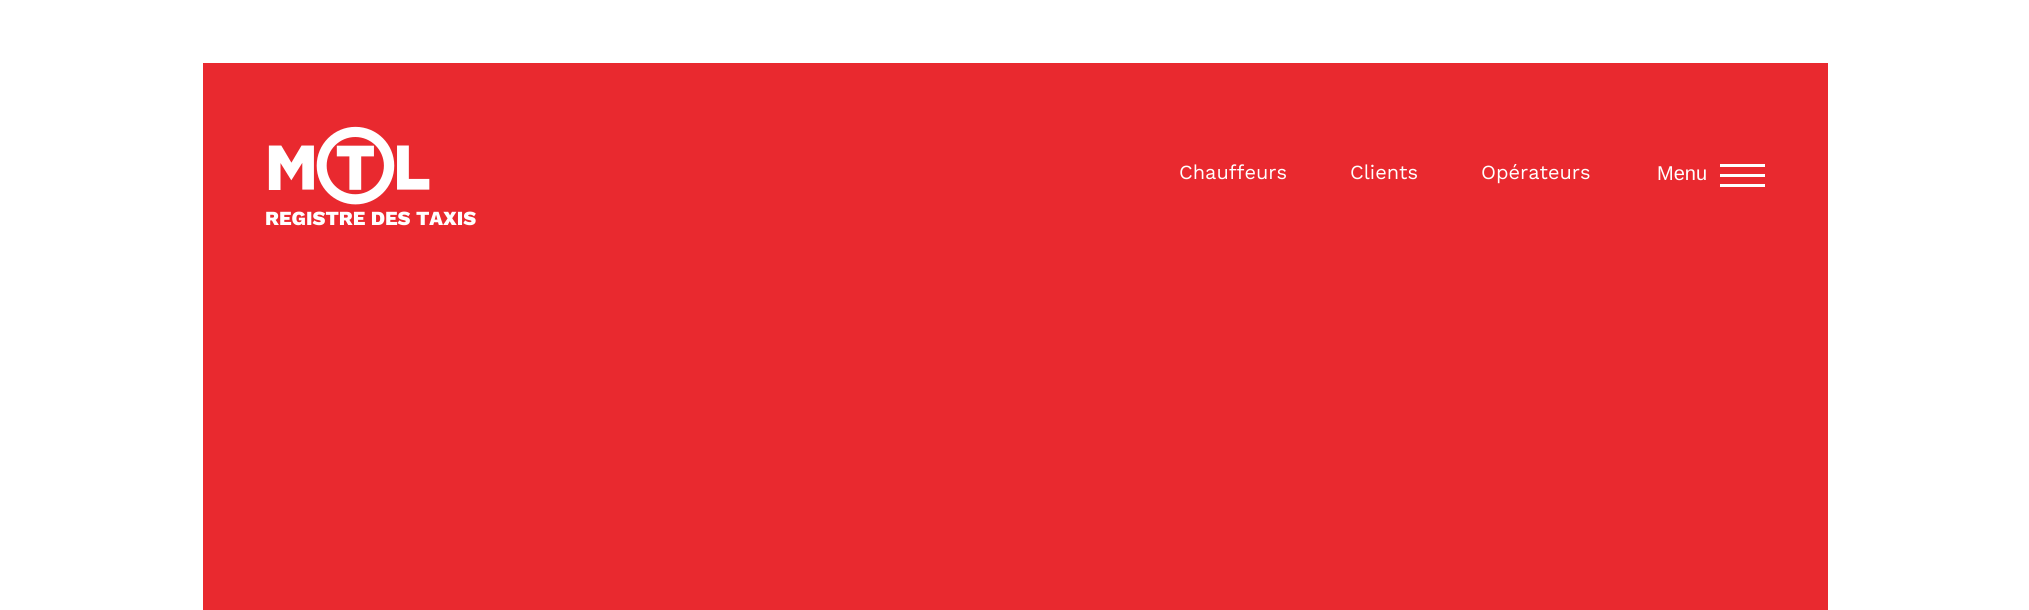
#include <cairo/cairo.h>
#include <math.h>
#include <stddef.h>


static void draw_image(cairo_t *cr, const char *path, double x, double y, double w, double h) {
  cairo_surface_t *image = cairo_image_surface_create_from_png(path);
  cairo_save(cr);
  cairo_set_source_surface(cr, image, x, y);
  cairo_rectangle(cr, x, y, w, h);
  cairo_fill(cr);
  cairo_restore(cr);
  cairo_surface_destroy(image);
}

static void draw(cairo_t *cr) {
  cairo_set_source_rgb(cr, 1, 1, 1);
  cairo_paint(cr);
  cairo_set_source_rgb(cr, 233 / 255.0, 41 / 255.0, 47 / 255.0);
  cairo_rectangle(cr, 203, 63, 1625, 547);
  cairo_fill(cr);
  draw_image(cr, "images/1.png", 268, 126, 162, 79);
  cairo_set_source_rgb(cr, 1, 1, 1);
  cairo_rectangle(cr, 1720, 174, 45, 3);
  cairo_fill(cr);
  cairo_rectangle(cr, 1720, 164, 45, 3);
  cairo_fill(cr);
  cairo_rectangle(cr, 1720, 184, 45, 3);
  cairo_fill(cr);
  cairo_select_font_face(cr, "Work Sans", CAIRO_FONT_SLANT_NORMAL, CAIRO_FONT_WEIGHT_NORMAL);
  cairo_set_font_size(cr, 20);
  cairo_move_to(cr, 1179, 179);
  cairo_show_text(cr, "Chauffeurs");
  cairo_move_to(cr, 1350, 179);
  cairo_show_text(cr, "Clients");
  cairo_move_to(cr, 1481, 179);
  cairo_show_text(cr, "Opérateurs");
  cairo_select_font_face(cr, "Work Sans ExtraBold", CAIRO_FONT_SLANT_NORMAL, CAIRO_FONT_WEIGHT_NORMAL);
  cairo_move_to(cr, 265, 225);
  cairo_show_text(cr, "REGISTRE DES TAXIS");
  cairo_select_font_face(cr, "Liberation Sans", CAIRO_FONT_SLANT_NORMAL, CAIRO_FONT_WEIGHT_NORMAL);
  cairo_move_to(cr, 1657, 180);
  cairo_show_text(cr, "Menu");
}

int main(void) {
  cairo_surface_t *surface = cairo_image_surface_create(CAIRO_FORMAT_RGB24, 2029, 610);
  cairo_t *cr = cairo_create(surface);
  cairo_font_options_t *options = cairo_font_options_create();
  cairo_font_options_set_hint_metrics(options, CAIRO_HINT_METRICS_OFF);
  cairo_font_options_set_hint_style(options, CAIRO_HINT_STYLE_NONE);
  cairo_set_font_options(cr, options);
  cairo_set_miter_limit(cr, 4);
  draw(cr);
  cairo_surface_write_to_png(surface, "out.png");
  cairo_font_options_destroy(options);
  cairo_destroy(cr);
  cairo_surface_destroy(surface);
  return 0;
}
